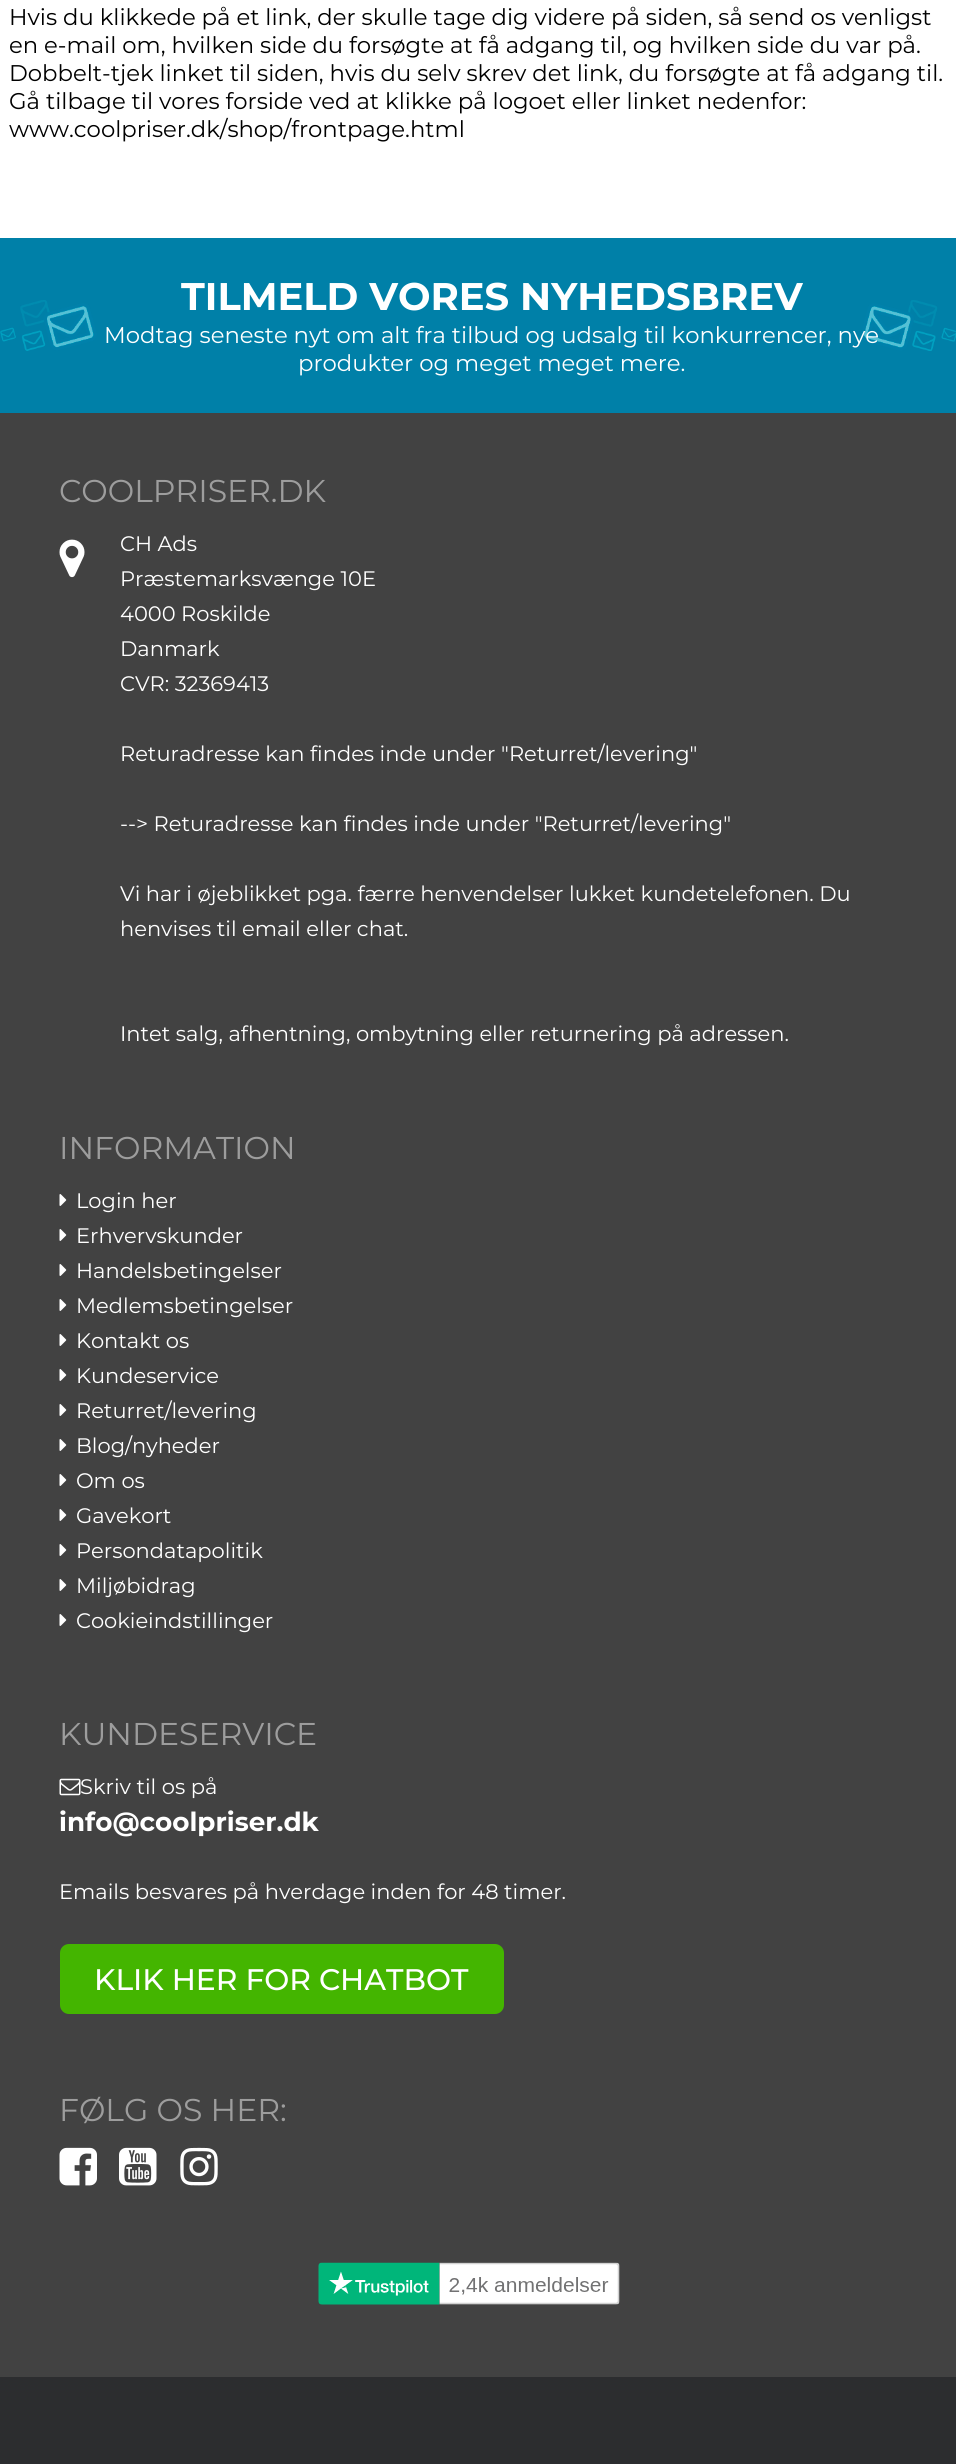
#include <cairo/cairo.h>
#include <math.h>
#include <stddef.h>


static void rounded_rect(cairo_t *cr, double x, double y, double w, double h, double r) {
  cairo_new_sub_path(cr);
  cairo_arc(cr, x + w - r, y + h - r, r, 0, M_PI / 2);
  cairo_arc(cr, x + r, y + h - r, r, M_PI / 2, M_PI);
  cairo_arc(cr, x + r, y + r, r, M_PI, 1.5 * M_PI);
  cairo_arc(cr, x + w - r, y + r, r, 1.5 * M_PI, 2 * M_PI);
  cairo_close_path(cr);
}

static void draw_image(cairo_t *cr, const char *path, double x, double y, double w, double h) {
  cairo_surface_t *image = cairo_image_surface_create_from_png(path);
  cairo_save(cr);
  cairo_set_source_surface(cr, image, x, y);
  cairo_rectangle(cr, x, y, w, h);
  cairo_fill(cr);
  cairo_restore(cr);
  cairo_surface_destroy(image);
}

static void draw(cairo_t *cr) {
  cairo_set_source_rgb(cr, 1, 1, 1);
  cairo_paint(cr);
  cairo_set_source_rgb(cr, 0, 128 / 255.0, 168 / 255.0);
  cairo_rectangle(cr, 0, 238, 956, 175);
  cairo_fill(cr);
  draw_image(cr, "images/1.png", 0, 300, 956, 51);
  cairo_set_source_rgb(cr, 66 / 255.0, 66 / 255.0, 66 / 255.0);
  cairo_rectangle(cr, 0, 413, 956, 1964);
  cairo_fill(cr);
  draw_image(cr, "images/2.png", 59, 539, 26, 39);
  draw_image(cr, "images/3.png", 59, 1194, 8, 12);
  draw_image(cr, "images/3.png", 59, 1229, 8, 12);
  draw_image(cr, "images/3.png", 59, 1264, 8, 12);
  draw_image(cr, "images/3.png", 59, 1299, 8, 12);
  draw_image(cr, "images/3.png", 59, 1334, 8, 12);
  draw_image(cr, "images/3.png", 59, 1369, 8, 12);
  draw_image(cr, "images/3.png", 59, 1404, 8, 12);
  draw_image(cr, "images/3.png", 59, 1439, 8, 12);
  draw_image(cr, "images/3.png", 59, 1474, 8, 12);
  draw_image(cr, "images/3.png", 59, 1509, 8, 12);
  draw_image(cr, "images/3.png", 59, 1544, 8, 12);
  draw_image(cr, "images/3.png", 59, 1579, 8, 12);
  draw_image(cr, "images/3.png", 59, 1614, 8, 12);
  draw_image(cr, "images/4.png", 59, 1778, 22, 18);
  cairo_set_source_rgb(cr, 68 / 255.0, 181 / 255.0, 0);
  rounded_rect(cr, 60, 1944, 444, 70, 9);
  cairo_fill(cr);
  draw_image(cr, "images/5.png", 59, 2147, 38, 39);
  draw_image(cr, "images/6.png", 119, 2147, 38, 39);
  draw_image(cr, "images/7.png", 180, 2147, 38, 39);
  draw_image(cr, "images/8.png", 318, 2262, 302, 43);
  cairo_set_source_rgb(cr, 44 / 255.0, 45 / 255.0, 47 / 255.0);
  cairo_rectangle(cr, 0, 2377, 956, 87);
  cairo_fill(cr);
  cairo_select_font_face(cr, "Montserrat", CAIRO_FONT_SLANT_NORMAL, CAIRO_FONT_WEIGHT_NORMAL);
  cairo_set_font_size(cr, 22.75);
  cairo_set_source_rgb(cr, 0, 0, 0);
  cairo_move_to(cr, 9, 25);
  cairo_show_text(cr, "Hvis du klikkede på et link, der skulle tage dig videre på siden, så send os venligst");
  cairo_move_to(cr, 9, 53);
  cairo_show_text(cr, "en e-mail om, hvilken side du forsøgte at få adgang til, og hvilken side du var på.");
  cairo_move_to(cr, 9, 81);
  cairo_show_text(cr, "Dobbelt-tjek linket til siden, hvis du selv skrev det link, du forsøgte at få adgang til.");
  cairo_move_to(cr, 9, 109);
  cairo_show_text(cr, "Gå tilbage til vores forside ved at klikke på logoet eller linket nedenfor:");
  cairo_move_to(cr, 9, 137);
  cairo_show_text(cr, "www.coolpriser.dk/shop/frontpage.html");
  cairo_select_font_face(cr, "Montserrat", CAIRO_FONT_SLANT_NORMAL, CAIRO_FONT_WEIGHT_BOLD);
  cairo_set_font_size(cr, 38.5);
  cairo_set_source_rgb(cr, 1, 1, 1);
  cairo_move_to(cr, 181, 310);
  cairo_show_text(cr, "TILMELD VORES NYHEDSBREV");
  cairo_select_font_face(cr, "Montserrat", CAIRO_FONT_SLANT_NORMAL, CAIRO_FONT_WEIGHT_NORMAL);
  cairo_set_font_size(cr, 22.75);
  cairo_move_to(cr, 104, 343);
  cairo_show_text(cr, "Modtag seneste nyt om alt fra tilbud og udsalg til konkurrencer, nye");
  cairo_move_to(cr, 298, 371);
  cairo_show_text(cr, "produkter og meget meget mere.");
  cairo_set_font_size(cr, 31.5);
  cairo_set_source_rgb(cr, 157 / 255.0, 157 / 255.0, 157 / 255.0);
  cairo_move_to(cr, 59, 502);
  cairo_show_text(cr, "COOLPRISER.DK");
  cairo_set_font_size(cr, 21);
  cairo_set_source_rgb(cr, 1, 1, 1);
  cairo_move_to(cr, 120, 551);
  cairo_show_text(cr, "CH Ads");
  cairo_move_to(cr, 120, 586);
  cairo_show_text(cr, "Præstemarksvænge 10E");
  cairo_move_to(cr, 120, 621);
  cairo_show_text(cr, "4000 Roskilde");
  cairo_move_to(cr, 120, 656);
  cairo_show_text(cr, "Danmark");
  cairo_move_to(cr, 120, 691);
  cairo_show_text(cr, "CVR: 32369413");
  cairo_move_to(cr, 120, 761);
  cairo_show_text(cr, "Returadresse kan findes inde under \"Returret/levering\"");
  cairo_move_to(cr, 120, 831);
  cairo_show_text(cr, "--> Returadresse kan findes inde under \"Returret/levering\"");
  cairo_move_to(cr, 120, 901);
  cairo_show_text(cr, "Vi har i øjeblikket pga. færre henvendelser lukket kundetelefonen. Du");
  cairo_move_to(cr, 120, 936);
  cairo_show_text(cr, "henvises til email eller chat.");
  cairo_move_to(cr, 120, 1041);
  cairo_show_text(cr, "Intet salg, afhentning, ombytning eller returnering på adressen.");
  cairo_set_font_size(cr, 31.5);
  cairo_set_source_rgb(cr, 157 / 255.0, 157 / 255.0, 157 / 255.0);
  cairo_move_to(cr, 59, 1159);
  cairo_show_text(cr, "INFORMATION");
  cairo_set_font_size(cr, 21);
  cairo_set_source_rgb(cr, 1, 1, 1);
  cairo_move_to(cr, 76, 1208);
  cairo_show_text(cr, "Login her");
  cairo_move_to(cr, 76, 1243);
  cairo_show_text(cr, "Erhvervskunder");
  cairo_move_to(cr, 76, 1278);
  cairo_show_text(cr, "Handelsbetingelser");
  cairo_move_to(cr, 76, 1313);
  cairo_show_text(cr, "Medlemsbetingelser");
  cairo_move_to(cr, 76, 1348);
  cairo_show_text(cr, "Kontakt os");
  cairo_move_to(cr, 76, 1383);
  cairo_show_text(cr, "Kundeservice");
  cairo_move_to(cr, 76, 1418);
  cairo_show_text(cr, "Returret/levering");
  cairo_move_to(cr, 76, 1453);
  cairo_show_text(cr, "Blog/nyheder");
  cairo_move_to(cr, 76, 1488);
  cairo_show_text(cr, "Om os");
  cairo_move_to(cr, 76, 1523);
  cairo_show_text(cr, "Gavekort");
  cairo_move_to(cr, 76, 1558);
  cairo_show_text(cr, "Persondatapolitik");
  cairo_move_to(cr, 76, 1593);
  cairo_show_text(cr, "Miljøbidrag");
  cairo_move_to(cr, 76, 1628);
  cairo_show_text(cr, "Cookieindstillinger");
  cairo_set_font_size(cr, 31.5);
  cairo_set_source_rgb(cr, 157 / 255.0, 157 / 255.0, 157 / 255.0);
  cairo_move_to(cr, 59, 1745);
  cairo_show_text(cr, "KUNDESERVICE");
  cairo_set_font_size(cr, 21);
  cairo_set_source_rgb(cr, 1, 1, 1);
  cairo_move_to(cr, 80, 1794);
  cairo_show_text(cr, "Skriv til os på");
  cairo_select_font_face(cr, "Montserrat", CAIRO_FONT_SLANT_NORMAL, CAIRO_FONT_WEIGHT_BOLD);
  cairo_set_font_size(cr, 26.25);
  cairo_move_to(cr, 59, 1831);
  cairo_show_text(cr, "info@coolpriser.dk");
  cairo_select_font_face(cr, "Montserrat", CAIRO_FONT_SLANT_NORMAL, CAIRO_FONT_WEIGHT_NORMAL);
  cairo_set_font_size(cr, 21);
  cairo_move_to(cr, 59, 1899);
  cairo_show_text(cr, "Emails besvares på hverdage inden for 48 timer.");
  cairo_select_font_face(cr, "Montserrat Medium", CAIRO_FONT_SLANT_NORMAL, CAIRO_FONT_WEIGHT_NORMAL);
  cairo_set_font_size(cr, 29.75);
  cairo_move_to(cr, 94, 1990);
  cairo_show_text(cr, "KLIK HER FOR CHATBOT");
  cairo_select_font_face(cr, "Montserrat", CAIRO_FONT_SLANT_NORMAL, CAIRO_FONT_WEIGHT_NORMAL);
  cairo_set_font_size(cr, 31.5);
  cairo_set_source_rgb(cr, 157 / 255.0, 157 / 255.0, 157 / 255.0);
  cairo_move_to(cr, 59, 2121);
  cairo_show_text(cr, "FØLG OS HER:");
}

int main(void) {
  cairo_surface_t *surface = cairo_image_surface_create(CAIRO_FORMAT_RGB24, 956, 2464);
  cairo_t *cr = cairo_create(surface);
  cairo_font_options_t *options = cairo_font_options_create();
  cairo_font_options_set_hint_metrics(options, CAIRO_HINT_METRICS_OFF);
  cairo_font_options_set_hint_style(options, CAIRO_HINT_STYLE_NONE);
  cairo_set_font_options(cr, options);
  cairo_set_miter_limit(cr, 4);
  draw(cr);
  cairo_surface_write_to_png(surface, "out.png");
  cairo_font_options_destroy(options);
  cairo_destroy(cr);
  cairo_surface_destroy(surface);
  return 0;
}
